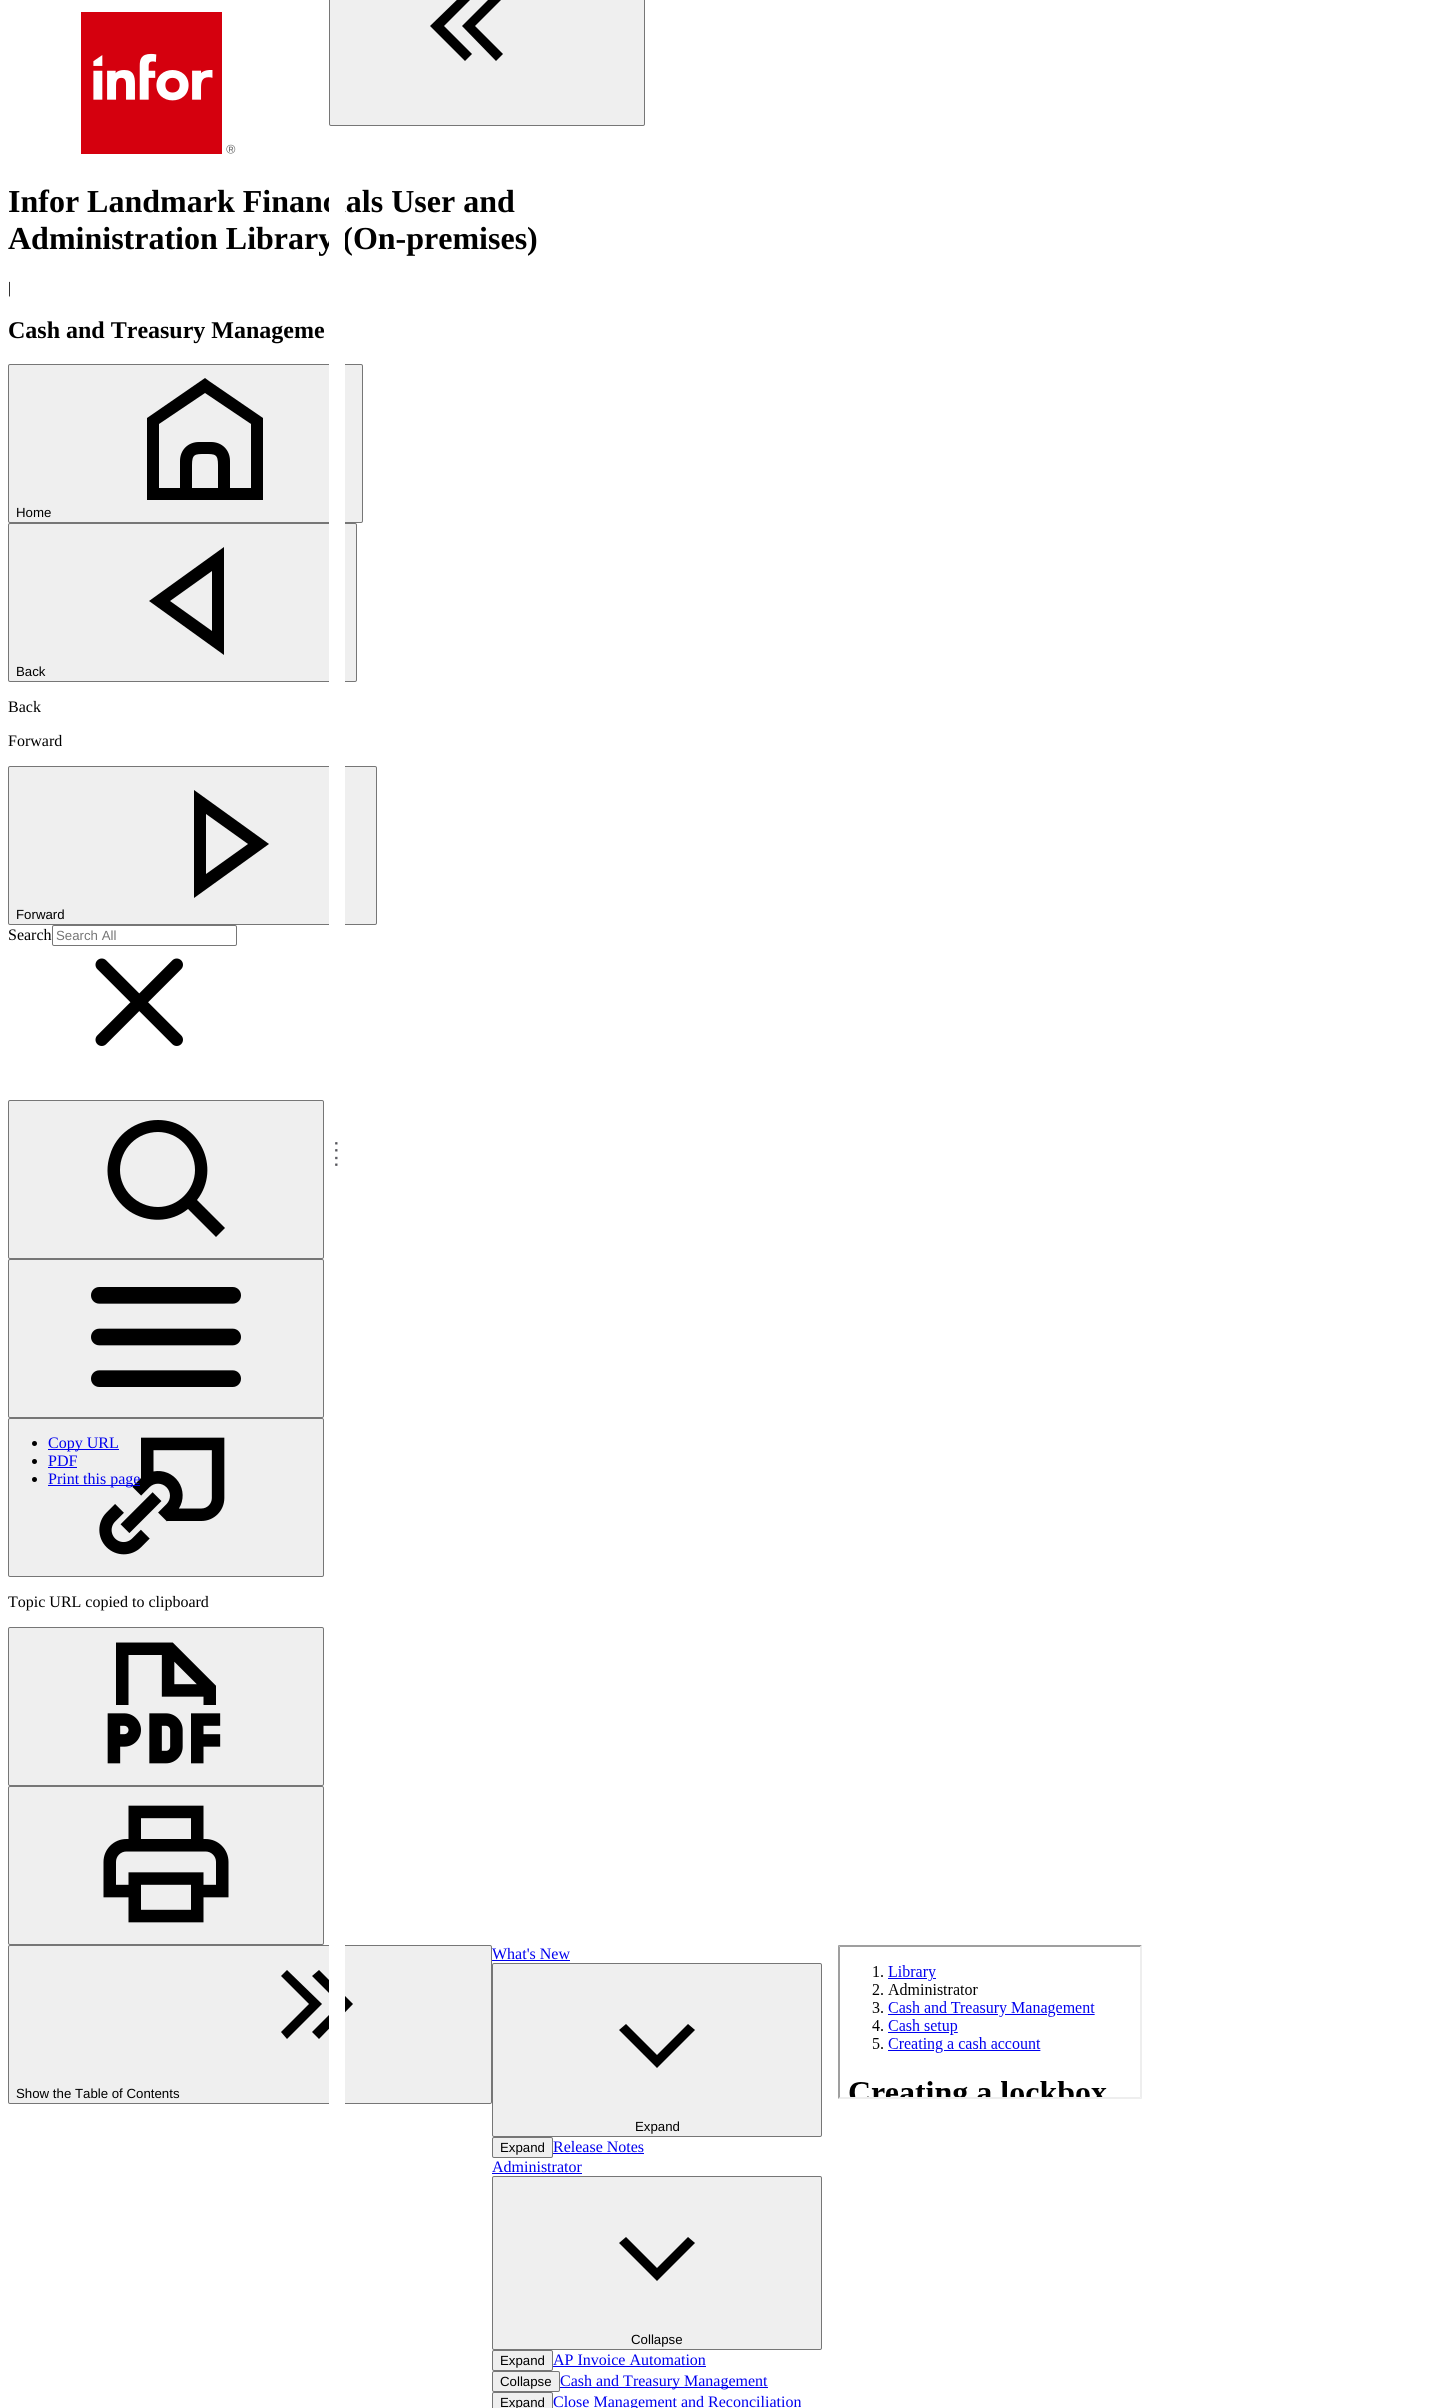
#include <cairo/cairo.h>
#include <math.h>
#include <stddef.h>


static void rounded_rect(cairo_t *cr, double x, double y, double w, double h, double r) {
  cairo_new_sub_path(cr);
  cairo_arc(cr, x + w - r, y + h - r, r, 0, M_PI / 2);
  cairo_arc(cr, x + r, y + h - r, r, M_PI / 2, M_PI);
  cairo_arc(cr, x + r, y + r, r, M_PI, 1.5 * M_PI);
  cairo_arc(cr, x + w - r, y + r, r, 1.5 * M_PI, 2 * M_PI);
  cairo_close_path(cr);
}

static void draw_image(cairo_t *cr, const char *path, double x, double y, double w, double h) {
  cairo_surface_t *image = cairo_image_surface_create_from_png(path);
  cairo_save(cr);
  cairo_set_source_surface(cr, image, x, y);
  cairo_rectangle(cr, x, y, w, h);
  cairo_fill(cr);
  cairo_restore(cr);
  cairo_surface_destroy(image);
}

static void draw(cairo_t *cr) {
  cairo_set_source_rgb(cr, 1, 1, 1);
  cairo_paint(cr);
  draw_image(cr, "images/1.png", 81, 12, 155, 142);
  cairo_set_source_rgb(cr, 239 / 255.0, 239 / 255.0, 239 / 255.0);
  rounded_rect(cr, 8.5, 364.5, 354, 158, 1.5);
  cairo_fill_preserve(cr);
  cairo_set_source_rgb(cr, 118 / 255.0, 118 / 255.0, 118 / 255.0);
  cairo_set_line_width(cr, 1);
  cairo_stroke(cr);
  cairo_set_source_rgb(cr, 0, 0, 0);
  cairo_set_fill_rule(cr, CAIRO_FILL_RULE_EVEN_ODD);
  cairo_new_path(cr);
  cairo_move_to(cr, 209, 381);
  cairo_line_to(cr, 205, 378);
  cairo_line_to(cr, 147, 418);
  cairo_line_to(cr, 147, 500);
  cairo_line_to(cr, 263, 500);
  cairo_line_to(cr, 263, 418);
  cairo_close_path(cr);
  cairo_move_to(cr, 159, 488);
  cairo_line_to(cr, 159, 424);
  cairo_line_to(cr, 205, 393);
  cairo_line_to(cr, 251, 424);
  cairo_line_to(cr, 251, 488);
  cairo_line_to(cr, 230, 488);
  cairo_line_to(cr, 230, 461);
  cairo_curve_to(cr, 230, 450, 222, 442, 211, 442);
  cairo_line_to(cr, 199, 442);
  cairo_curve_to(cr, 188, 442, 180, 450, 180, 461);
  cairo_line_to(cr, 180, 488);
  cairo_close_path(cr);
  cairo_move_to(cr, 192, 488);
  cairo_line_to(cr, 218, 488);
  cairo_line_to(cr, 218, 465);
  cairo_curve_to(cr, 218, 454, 215, 454, 205, 454);
  cairo_curve_to(cr, 195, 454, 192, 454, 192, 465);
  cairo_close_path(cr);
  cairo_fill(cr);
  cairo_set_source_rgb(cr, 239 / 255.0, 239 / 255.0, 239 / 255.0);
  rounded_rect(cr, 8.5, 523.5, 348, 158, 1.5);
  cairo_fill_preserve(cr);
  cairo_set_source_rgb(cr, 118 / 255.0, 118 / 255.0, 118 / 255.0);
  cairo_stroke(cr);
  cairo_set_source_rgb(cr, 0, 0, 0);
  cairo_new_path(cr);
  cairo_move_to(cr, 224, 547);
  cairo_line_to(cr, 149, 601);
  cairo_line_to(cr, 224, 655);
  cairo_close_path(cr);
  cairo_move_to(cr, 212, 571);
  cairo_line_to(cr, 212, 631);
  cairo_line_to(cr, 170, 601);
  cairo_close_path(cr);
  cairo_fill(cr);
  cairo_set_source_rgb(cr, 239 / 255.0, 239 / 255.0, 239 / 255.0);
  rounded_rect(cr, 8.5, 766.5, 368, 158, 1.5);
  cairo_fill_preserve(cr);
  cairo_set_source_rgb(cr, 118 / 255.0, 118 / 255.0, 118 / 255.0);
  cairo_stroke(cr);
  cairo_set_source_rgb(cr, 0, 0, 0);
  cairo_new_path(cr);
  cairo_move_to(cr, 194, 790);
  cairo_line_to(cr, 269, 844);
  cairo_line_to(cr, 194, 898);
  cairo_close_path(cr);
  cairo_move_to(cr, 206, 814);
  cairo_line_to(cr, 206, 874);
  cairo_line_to(cr, 248, 844);
  cairo_close_path(cr);
  cairo_fill(cr);
  rounded_rect(cr, 52.5, 925.5, 184, 20, 1.5);
  cairo_set_source_rgb(cr, 118 / 255.0, 118 / 255.0, 118 / 255.0);
  cairo_stroke(cr);
  draw_image(cr, "images/2.png", 95, 958, 88, 88);
  cairo_set_source_rgb(cr, 239 / 255.0, 239 / 255.0, 239 / 255.0);
  rounded_rect(cr, 8.5, 1100.5, 315, 158, 1.5);
  cairo_fill_preserve(cr);
  cairo_set_source_rgb(cr, 118 / 255.0, 118 / 255.0, 118 / 255.0);
  cairo_stroke(cr);
  cairo_set_source_rgb(cr, 0, 0, 0);
  cairo_new_path(cr);
  cairo_move_to(cr, 120, 1170);
  cairo_curve_to(cr, 120, 1149, 137, 1132, 158, 1132);
  cairo_curve_to(cr, 178, 1132, 195, 1149, 195, 1170);
  cairo_curve_to(cr, 195, 1190, 178, 1207, 158, 1207);
  cairo_curve_to(cr, 137, 1207, 120, 1190, 120, 1170);
  cairo_close_path(cr);
  cairo_move_to(cr, 158, 1120);
  cairo_curve_to(cr, 136, 1120, 116, 1134, 110, 1155);
  cairo_curve_to(cr, 103, 1176, 111, 1198, 129, 1211);
  cairo_curve_to(cr, 147, 1223, 171, 1223, 188, 1209);
  cairo_line_to(cr, 216, 1237);
  cairo_line_to(cr, 225, 1228);
  cairo_line_to(cr, 197, 1200);
  cairo_curve_to(cr, 222, 1168, 199, 1120, 158, 1120);
  cairo_close_path(cr);
  cairo_fill(cr);
  cairo_set_source_rgb(cr, 239 / 255.0, 239 / 255.0, 239 / 255.0);
  rounded_rect(cr, 8.5, 1259.5, 315, 158, 1.5);
  cairo_fill_preserve(cr);
  cairo_set_source_rgb(cr, 118 / 255.0, 118 / 255.0, 118 / 255.0);
  cairo_stroke(cr);
  draw_image(cr, "images/3.png", 91, 1287, 150, 100);
  cairo_set_source_rgb(cr, 239 / 255.0, 239 / 255.0, 239 / 255.0);
  rounded_rect(cr, 8.5, 1418.5, 315, 158, 1.5);
  cairo_fill_preserve(cr);
  cairo_set_source_rgb(cr, 118 / 255.0, 118 / 255.0, 118 / 255.0);
  cairo_stroke(cr);
  cairo_set_source_rgb(cr, 0, 0, 0);
  cairo_arc(cr, 34.5, 1443.5, 2.5, 0, 2 * M_PI);
  cairo_fill(cr);
  draw_image(cr, "images/4.png", 99, 1437, 126, 118);
  cairo_set_source_rgb(cr, 0, 0, 238 / 255.0);
  cairo_rectangle(cr, 48, 1449, 71, 1);
  cairo_fill(cr);
  cairo_set_source_rgb(cr, 0, 0, 0);
  cairo_arc(cr, 34.5, 1461.5, 2.5, 0, 2 * M_PI);
  cairo_fill(cr);
  cairo_set_source_rgb(cr, 0, 0, 238 / 255.0);
  cairo_rectangle(cr, 48, 1467, 29, 1);
  cairo_fill(cr);
  cairo_set_source_rgb(cr, 0, 0, 0);
  cairo_arc(cr, 34.5, 1479.5, 2.5, 0, 2 * M_PI);
  cairo_fill(cr);
  cairo_set_source_rgb(cr, 0, 0, 238 / 255.0);
  cairo_rectangle(cr, 48, 1485, 92, 1);
  cairo_fill(cr);
  cairo_set_source_rgb(cr, 239 / 255.0, 239 / 255.0, 239 / 255.0);
  rounded_rect(cr, 8.5, 1627.5, 315, 158, 1.5);
  cairo_fill_preserve(cr);
  cairo_set_source_rgb(cr, 118 / 255.0, 118 / 255.0, 118 / 255.0);
  cairo_stroke(cr);
  draw_image(cr, "images/5.png", 107, 1642, 114, 122);
  cairo_set_source_rgb(cr, 239 / 255.0, 239 / 255.0, 239 / 255.0);
  rounded_rect(cr, 8.5, 1786.5, 315, 158, 1.5);
  cairo_fill_preserve(cr);
  cairo_set_source_rgb(cr, 118 / 255.0, 118 / 255.0, 118 / 255.0);
  cairo_stroke(cr);
  draw_image(cr, "images/6.png", 103, 1805, 126, 118);
  cairo_set_source_rgb(cr, 239 / 255.0, 239 / 255.0, 239 / 255.0);
  rounded_rect(cr, 8.5, 1945.5, 483, 158, 1.5);
  cairo_fill_preserve(cr);
  cairo_set_source_rgb(cr, 118 / 255.0, 118 / 255.0, 118 / 255.0);
  cairo_stroke(cr);
  cairo_set_source_rgb(cr, 0, 0, 0);
  cairo_new_path(cr);
  cairo_move_to(cr, 312, 2032);
  cairo_line_to(cr, 340, 2004);
  cairo_line_to(cr, 312, 1976);
  cairo_line_to(cr, 319, 1970);
  cairo_line_to(cr, 353, 2004);
  cairo_line_to(cr, 319, 2039);
  cairo_close_path(cr);
  cairo_move_to(cr, 281, 2032);
  cairo_line_to(cr, 309, 2004);
  cairo_line_to(cr, 281, 1976);
  cairo_line_to(cr, 287, 1970);
  cairo_line_to(cr, 322, 2004);
  cairo_line_to(cr, 287, 2039);
  cairo_close_path(cr);
  cairo_fill(cr);
  cairo_set_source_rgb(cr, 239 / 255.0, 239 / 255.0, 239 / 255.0);
  rounded_rect(cr, 329.5, -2.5, 315, 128, 1.5);
  cairo_fill_preserve(cr);
  cairo_set_source_rgb(cr, 118 / 255.0, 118 / 255.0, 118 / 255.0);
  cairo_stroke(cr);
  cairo_set_source_rgb(cr, 0, 0, 0);
  cairo_new_path(cr);
  cairo_move_to(cr, 472, 54);
  cairo_line_to(cr, 444, 26);
  cairo_line_to(cr, 472, -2);
  cairo_line_to(cr, 465, -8);
  cairo_line_to(cr, 430, 26);
  cairo_line_to(cr, 465, 61);
  cairo_close_path(cr);
  cairo_move_to(cr, 503, 54);
  cairo_line_to(cr, 475, 26);
  cairo_line_to(cr, 503, -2);
  cairo_line_to(cr, 496, -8);
  cairo_line_to(cr, 462, 26);
  cairo_line_to(cr, 496, 61);
  cairo_close_path(cr);
  cairo_fill(cr);
  cairo_set_source_rgb(cr, 0, 0, 238 / 255.0);
  cairo_rectangle(cr, 492, 1960, 78, 1);
  cairo_fill(cr);
  cairo_set_source_rgb(cr, 239 / 255.0, 239 / 255.0, 239 / 255.0);
  rounded_rect(cr, 492.5, 1963.5, 329, 173, 1.5);
  cairo_fill_preserve(cr);
  cairo_set_source_rgb(cr, 118 / 255.0, 118 / 255.0, 118 / 255.0);
  cairo_stroke(cr);
  cairo_set_source_rgb(cr, 0, 0, 0);
  cairo_new_path(cr);
  cairo_move_to(cr, 695, 2030);
  cairo_line_to(cr, 688, 2024);
  cairo_line_to(cr, 657, 2055);
  cairo_line_to(cr, 626, 2024);
  cairo_line_to(cr, 619, 2030);
  cairo_line_to(cr, 657, 2068);
  cairo_close_path(cr);
  cairo_fill(cr);
  cairo_set_source_rgb(cr, 239 / 255.0, 239 / 255.0, 239 / 255.0);
  rounded_rect(cr, 492.5, 2137.5, 60, 20, 1.5);
  cairo_fill_preserve(cr);
  cairo_set_source_rgb(cr, 118 / 255.0, 118 / 255.0, 118 / 255.0);
  cairo_stroke(cr);
  cairo_set_source_rgb(cr, 0, 0, 238 / 255.0);
  cairo_rectangle(cr, 553, 2153, 91, 1);
  cairo_fill(cr);
  cairo_rectangle(cr, 492, 2173, 90, 1);
  cairo_fill(cr);
  cairo_set_source_rgb(cr, 239 / 255.0, 239 / 255.0, 239 / 255.0);
  rounded_rect(cr, 492.5, 2176.5, 329, 173, 1.5);
  cairo_fill_preserve(cr);
  cairo_set_source_rgb(cr, 118 / 255.0, 118 / 255.0, 118 / 255.0);
  cairo_stroke(cr);
  cairo_set_source_rgb(cr, 0, 0, 0);
  cairo_new_path(cr);
  cairo_move_to(cr, 695, 2243);
  cairo_line_to(cr, 688, 2237);
  cairo_line_to(cr, 657, 2268);
  cairo_line_to(cr, 626, 2237);
  cairo_line_to(cr, 619, 2243);
  cairo_line_to(cr, 657, 2281);
  cairo_close_path(cr);
  cairo_fill(cr);
  cairo_set_source_rgb(cr, 239 / 255.0, 239 / 255.0, 239 / 255.0);
  rounded_rect(cr, 492.5, 2350.5, 60, 20, 1.5);
  cairo_fill_preserve(cr);
  cairo_set_source_rgb(cr, 118 / 255.0, 118 / 255.0, 118 / 255.0);
  cairo_stroke(cr);
  cairo_set_source_rgb(cr, 0, 0, 238 / 255.0);
  cairo_rectangle(cr, 553, 2366, 153, 1);
  cairo_fill(cr);
  cairo_set_source_rgb(cr, 239 / 255.0, 239 / 255.0, 239 / 255.0);
  rounded_rect(cr, 492.5, 2371.5, 67, 20, 1.5);
  cairo_fill_preserve(cr);
  cairo_set_source_rgb(cr, 118 / 255.0, 118 / 255.0, 118 / 255.0);
  cairo_stroke(cr);
  cairo_set_source_rgb(cr, 0, 0, 238 / 255.0);
  cairo_rectangle(cr, 560, 2387, 208, 1);
  cairo_fill(cr);
  cairo_set_source_rgb(cr, 239 / 255.0, 239 / 255.0, 239 / 255.0);
  rounded_rect(cr, 492.5, 2392.5, 60, 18, 1.5);
  cairo_fill_preserve(cr);
  cairo_set_source_rgb(cr, 118 / 255.0, 118 / 255.0, 118 / 255.0);
  cairo_stroke(cr);
  cairo_set_source_rgb(cr, 159 / 255.0, 159 / 255.0, 159 / 255.0);
  cairo_set_fill_rule(cr, CAIRO_FILL_RULE_WINDING);
  cairo_new_path(cr);
  cairo_move_to(cr, 838, 1945);
  cairo_line_to(cr, 1142, 1945);
  cairo_line_to(cr, 1140, 1947);
  cairo_line_to(cr, 840, 1947);
  cairo_close_path(cr);
  cairo_fill(cr);
  cairo_set_source_rgb(cr, 238 / 255.0, 238 / 255.0, 238 / 255.0);
  cairo_new_path(cr);
  cairo_move_to(cr, 1142, 1945);
  cairo_line_to(cr, 1142, 2099);
  cairo_line_to(cr, 1140, 2097);
  cairo_line_to(cr, 1140, 1947);
  cairo_close_path(cr);
  cairo_fill(cr);
  cairo_new_path(cr);
  cairo_move_to(cr, 1142, 2099);
  cairo_line_to(cr, 838, 2099);
  cairo_line_to(cr, 840, 2097);
  cairo_line_to(cr, 1140, 2097);
  cairo_close_path(cr);
  cairo_fill(cr);
  cairo_set_source_rgb(cr, 159 / 255.0, 159 / 255.0, 159 / 255.0);
  cairo_new_path(cr);
  cairo_move_to(cr, 838, 2099);
  cairo_line_to(cr, 838, 1945);
  cairo_line_to(cr, 840, 1947);
  cairo_line_to(cr, 840, 2097);
  cairo_close_path(cr);
  cairo_fill(cr);
  draw_image(cr, "images/8.png", 849, 1965, 258, 132);
  cairo_select_font_face(cr, "Liberation Serif", CAIRO_FONT_SLANT_NORMAL, CAIRO_FONT_WEIGHT_BOLD);
  cairo_set_font_size(cr, 32);
  cairo_set_source_rgb(cr, 0, 0, 0);
  cairo_move_to(cr, 8, 212);
  cairo_show_text(cr, "Infor Landmark Financials User and");
  cairo_move_to(cr, 8, 249);
  cairo_show_text(cr, "Administration Library (On-premises)");
  cairo_select_font_face(cr, "Liberation Serif", CAIRO_FONT_SLANT_NORMAL, CAIRO_FONT_WEIGHT_NORMAL);
  cairo_set_font_size(cr, 16);
  cairo_move_to(cr, 8, 293);
  cairo_show_text(cr, "|");
  cairo_select_font_face(cr, "Liberation Serif", CAIRO_FONT_SLANT_NORMAL, CAIRO_FONT_WEIGHT_BOLD);
  cairo_set_font_size(cr, 24);
  cairo_move_to(cr, 8, 338);
  cairo_show_text(cr, "Cash and Treasury Manageme");
  cairo_select_font_face(cr, "Liberation Sans", CAIRO_FONT_SLANT_NORMAL, CAIRO_FONT_WEIGHT_NORMAL);
  cairo_set_font_size(cr, 13.25);
  cairo_move_to(cr, 16, 517);
  cairo_show_text(cr, "Home");
  cairo_move_to(cr, 16, 676);
  cairo_show_text(cr, "Back");
  cairo_select_font_face(cr, "Liberation Serif", CAIRO_FONT_SLANT_NORMAL, CAIRO_FONT_WEIGHT_NORMAL);
  cairo_set_font_size(cr, 16);
  cairo_move_to(cr, 8, 712);
  cairo_show_text(cr, "Back");
  cairo_move_to(cr, 8, 746);
  cairo_show_text(cr, "Forward");
  cairo_select_font_face(cr, "Liberation Sans", CAIRO_FONT_SLANT_NORMAL, CAIRO_FONT_WEIGHT_NORMAL);
  cairo_set_font_size(cr, 13.25);
  cairo_move_to(cr, 16, 919);
  cairo_show_text(cr, "Forward");
  cairo_select_font_face(cr, "Liberation Serif", CAIRO_FONT_SLANT_NORMAL, CAIRO_FONT_WEIGHT_NORMAL);
  cairo_set_font_size(cr, 16);
  cairo_move_to(cr, 8, 940);
  cairo_show_text(cr, "Search");
  cairo_select_font_face(cr, "Liberation Sans", CAIRO_FONT_SLANT_NORMAL, CAIRO_FONT_WEIGHT_NORMAL);
  cairo_set_font_size(cr, 13.25);
  cairo_set_source_rgb(cr, 117 / 255.0, 117 / 255.0, 117 / 255.0);
  cairo_move_to(cr, 56, 940);
  cairo_show_text(cr, "Search All");
  cairo_select_font_face(cr, "Liberation Serif", CAIRO_FONT_SLANT_NORMAL, CAIRO_FONT_WEIGHT_NORMAL);
  cairo_set_font_size(cr, 16);
  cairo_set_source_rgb(cr, 0, 0, 238 / 255.0);
  cairo_move_to(cr, 48, 1448);
  cairo_show_text(cr, "Copy URL");
  cairo_move_to(cr, 48, 1466);
  cairo_show_text(cr, "PDF");
  cairo_move_to(cr, 48, 1484);
  cairo_show_text(cr, "Print this page");
  cairo_set_source_rgb(cr, 0, 0, 0);
  cairo_move_to(cr, 8, 1607);
  cairo_show_text(cr, "Topic URL copied to clipboard");
  cairo_select_font_face(cr, "Liberation Sans", CAIRO_FONT_SLANT_NORMAL, CAIRO_FONT_WEIGHT_NORMAL);
  cairo_set_font_size(cr, 13.25);
  cairo_move_to(cr, 16, 2098);
  cairo_show_text(cr, "Show the Table of Contents");
  cairo_set_source_rgb(cr, 1, 1, 1);
  cairo_rectangle(cr, 329, 189, 16, 1915);
  cairo_fill(cr);
  draw_image(cr, "images/7.png", 335, 1142, 3, 24);
  cairo_select_font_face(cr, "Liberation Serif", CAIRO_FONT_SLANT_NORMAL, CAIRO_FONT_WEIGHT_NORMAL);
  cairo_set_font_size(cr, 16);
  cairo_set_source_rgb(cr, 0, 0, 238 / 255.0);
  cairo_move_to(cr, 492, 1959);
  cairo_show_text(cr, "What's New");
  cairo_select_font_face(cr, "Liberation Sans", CAIRO_FONT_SLANT_NORMAL, CAIRO_FONT_WEIGHT_NORMAL);
  cairo_set_font_size(cr, 13.25);
  cairo_set_source_rgb(cr, 0, 0, 0);
  cairo_move_to(cr, 635, 2131);
  cairo_show_text(cr, "Expand");
  cairo_move_to(cr, 500, 2152);
  cairo_show_text(cr, "Expand");
  cairo_select_font_face(cr, "Liberation Serif", CAIRO_FONT_SLANT_NORMAL, CAIRO_FONT_WEIGHT_NORMAL);
  cairo_set_font_size(cr, 16);
  cairo_set_source_rgb(cr, 0, 0, 238 / 255.0);
  cairo_move_to(cr, 553, 2152);
  cairo_show_text(cr, "Release Notes");
  cairo_move_to(cr, 492, 2172);
  cairo_show_text(cr, "Administrator");
  cairo_select_font_face(cr, "Liberation Sans", CAIRO_FONT_SLANT_NORMAL, CAIRO_FONT_WEIGHT_NORMAL);
  cairo_set_font_size(cr, 13.25);
  cairo_set_source_rgb(cr, 0, 0, 0);
  cairo_move_to(cr, 631, 2344);
  cairo_show_text(cr, "Collapse");
  cairo_move_to(cr, 500, 2365);
  cairo_show_text(cr, "Expand");
  cairo_select_font_face(cr, "Liberation Serif", CAIRO_FONT_SLANT_NORMAL, CAIRO_FONT_WEIGHT_NORMAL);
  cairo_set_font_size(cr, 16);
  cairo_set_source_rgb(cr, 0, 0, 238 / 255.0);
  cairo_move_to(cr, 553, 2365);
  cairo_show_text(cr, "AP Invoice Automation");
  cairo_select_font_face(cr, "Liberation Sans", CAIRO_FONT_SLANT_NORMAL, CAIRO_FONT_WEIGHT_NORMAL);
  cairo_set_font_size(cr, 13.25);
  cairo_set_source_rgb(cr, 0, 0, 0);
  cairo_move_to(cr, 500, 2386);
  cairo_show_text(cr, "Collapse");
  cairo_select_font_face(cr, "Liberation Serif", CAIRO_FONT_SLANT_NORMAL, CAIRO_FONT_WEIGHT_NORMAL);
  cairo_set_font_size(cr, 16);
  cairo_set_source_rgb(cr, 0, 0, 238 / 255.0);
  cairo_move_to(cr, 560, 2386);
  cairo_show_text(cr, "Cash and Treasury Management");
  cairo_select_font_face(cr, "Liberation Sans", CAIRO_FONT_SLANT_NORMAL, CAIRO_FONT_WEIGHT_NORMAL);
  cairo_set_font_size(cr, 13.25);
  cairo_set_source_rgb(cr, 0, 0, 0);
  cairo_move_to(cr, 500, 2407);
  cairo_show_text(cr, "Expand");
  cairo_select_font_face(cr, "Liberation Serif", CAIRO_FONT_SLANT_NORMAL, CAIRO_FONT_WEIGHT_NORMAL);
  cairo_set_font_size(cr, 16);
  cairo_set_source_rgb(cr, 0, 0, 238 / 255.0);
  cairo_move_to(cr, 553, 2407);
  cairo_show_text(cr, "Close Management and Reconciliation");
}

int main(void) {
  cairo_surface_t *surface = cairo_image_surface_create(CAIRO_FORMAT_RGB24, 1439, 2408);
  cairo_t *cr = cairo_create(surface);
  cairo_font_options_t *options = cairo_font_options_create();
  cairo_font_options_set_hint_metrics(options, CAIRO_HINT_METRICS_OFF);
  cairo_font_options_set_hint_style(options, CAIRO_HINT_STYLE_NONE);
  cairo_set_font_options(cr, options);
  cairo_set_miter_limit(cr, 4);
  draw(cr);
  cairo_surface_write_to_png(surface, "out.png");
  cairo_font_options_destroy(options);
  cairo_destroy(cr);
  cairo_surface_destroy(surface);
  return 0;
}
